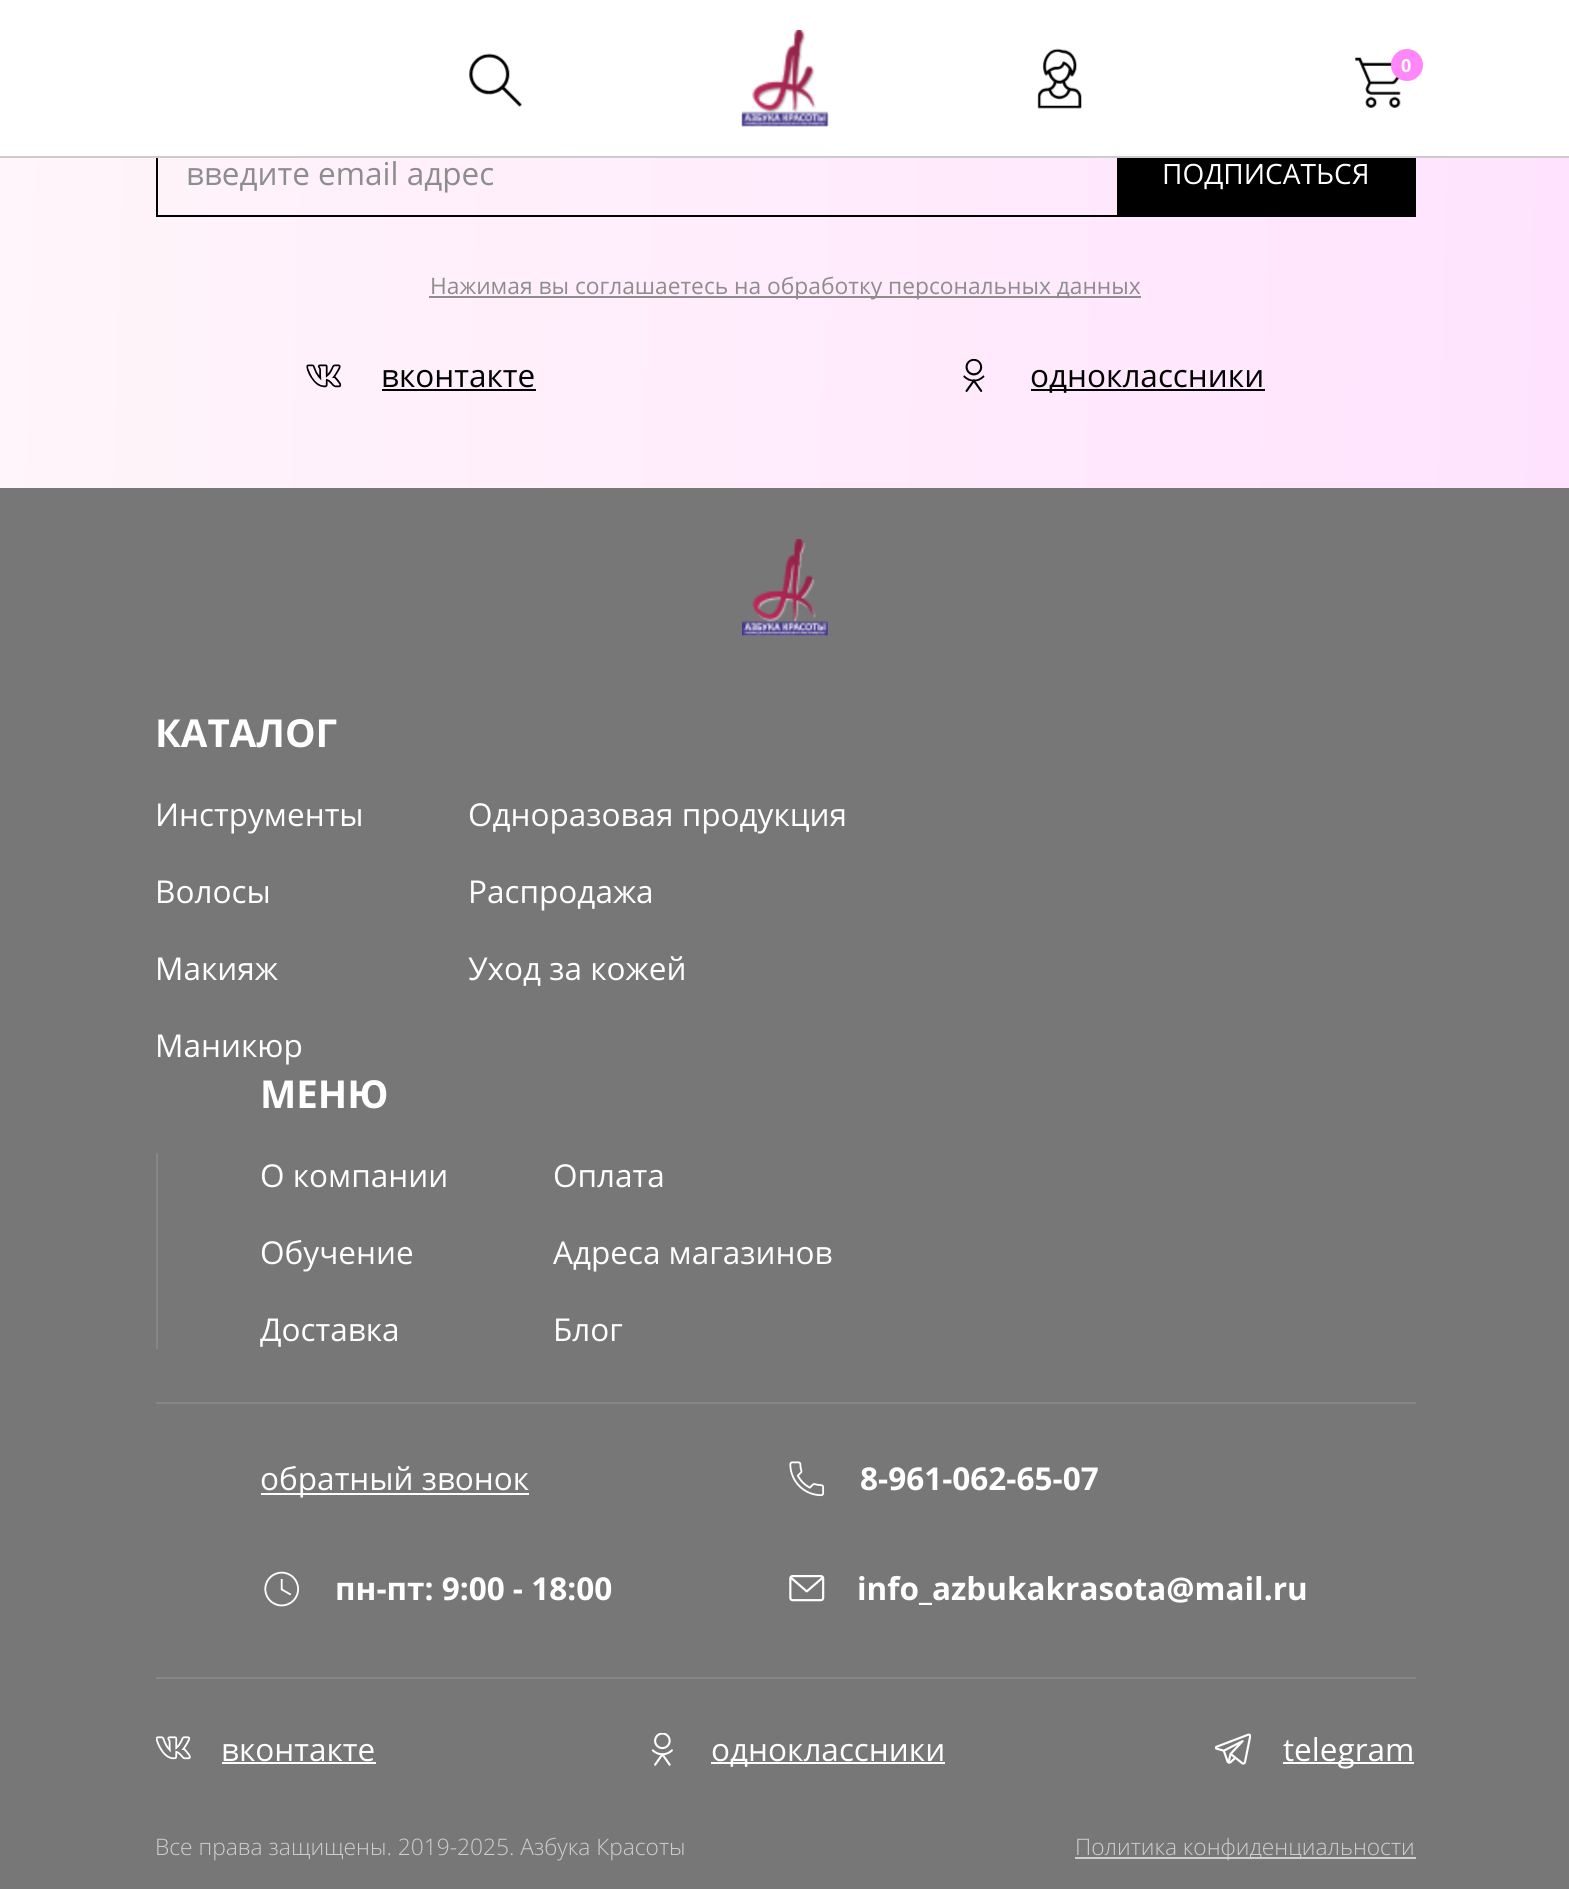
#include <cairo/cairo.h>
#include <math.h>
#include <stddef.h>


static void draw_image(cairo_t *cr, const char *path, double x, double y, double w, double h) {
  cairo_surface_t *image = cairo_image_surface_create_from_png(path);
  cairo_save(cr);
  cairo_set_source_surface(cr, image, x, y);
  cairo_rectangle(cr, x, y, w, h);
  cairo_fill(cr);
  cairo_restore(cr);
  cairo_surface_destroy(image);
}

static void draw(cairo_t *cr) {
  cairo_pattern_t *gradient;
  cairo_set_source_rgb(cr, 1, 1, 1);
  cairo_paint(cr);
  cairo_set_source_rgb(cr, 204 / 255.0, 204 / 255.0, 204 / 255.0);
  cairo_rectangle(cr, 0, 156, 1569, 2);
  cairo_fill(cr);
  draw_image(cr, "images/1.png", 469, 53, 54, 54);
  draw_image(cr, "images/2.png", 741, 30, 88, 97);
  draw_image(cr, "images/3.png", 1037, 48, 45, 61);
  draw_image(cr, "images/4.png", 1355, 57, 46, 51);
  cairo_set_source_rgb(cr, 1, 135 / 255.0, 250 / 255.0);
  cairo_arc(cr, 1407, 65, 16, 0, 2 * M_PI);
  cairo_fill(cr);
  gradient = cairo_pattern_create_linear(-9, 142, 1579, 189);
  cairo_pattern_add_color_stop_rgba(gradient, 0, 1, 245 / 255.0, 250 / 255.0, 1);
  cairo_pattern_add_color_stop_rgba(gradient, 1, 1, 227 / 255.0, 254 / 255.0, 1);
  cairo_set_source(cr, gradient);
  cairo_pattern_destroy(gradient);
  cairo_rectangle(cr, 0, 158, 1569, 330);
  cairo_fill(cr);
  cairo_set_source_rgb(cr, 0, 0, 0);
  cairo_rectangle(cr, 156, 215, 961, 2);
  cairo_fill(cr);
  cairo_rectangle(cr, 156, 158, 2, 59);
  cairo_fill(cr);
  cairo_rectangle(cr, 1117, 158, 299, 59);
  cairo_fill(cr);
  cairo_set_source_rgb(cr, 141 / 255.0, 141 / 255.0, 141 / 255.0);
  cairo_rectangle(cr, 429, 296, 712, 2);
  cairo_fill(cr);
  draw_image(cr, "images/5.png", 306, 364, 36, 24);
  cairo_set_source_rgb(cr, 0, 0, 0);
  cairo_rectangle(cr, 382, 389, 154, 2);
  cairo_fill(cr);
  draw_image(cr, "images/6.png", 963, 358, 22, 34);
  cairo_rectangle(cr, 1031, 389, 234, 2);
  cairo_fill(cr);
  cairo_set_source_rgb(cr, 119 / 255.0, 119 / 255.0, 119 / 255.0);
  cairo_rectangle(cr, 0, 488, 1569, 1401);
  cairo_fill(cr);
  draw_image(cr, "images/7.png", 742, 539, 86, 97);
  cairo_set_source_rgb(cr, 134 / 255.0, 134 / 255.0, 134 / 255.0);
  cairo_rectangle(cr, 156, 1153, 2, 196);
  cairo_fill(cr);
  cairo_rectangle(cr, 156, 1402, 1260, 2);
  cairo_fill(cr);
  cairo_rectangle(cr, 156, 1677, 1260, 2);
  cairo_fill(cr);
  cairo_set_source_rgb(cr, 1, 1, 1);
  cairo_rectangle(cr, 261, 1493, 268, 2);
  cairo_fill(cr);
  draw_image(cr, "images/8.png", 789, 1461, 36, 36);
  draw_image(cr, "images/9.png", 264, 1571, 35, 36);
  draw_image(cr, "images/10.png", 789, 1575, 36, 27);
  draw_image(cr, "images/11.png", 156, 1736, 35, 24);
  cairo_rectangle(cr, 222, 1762, 154, 2);
  cairo_fill(cr);
  draw_image(cr, "images/12.png", 651, 1733, 22, 33);
  cairo_rectangle(cr, 711, 1762, 234, 2);
  cairo_fill(cr);
  draw_image(cr, "images/13.png", 1215, 1733, 36, 32);
  cairo_rectangle(cr, 1283, 1762, 131, 2);
  cairo_fill(cr);
  cairo_set_source_rgb(cr, 206 / 255.0, 206 / 255.0, 206 / 255.0);
  cairo_rectangle(cr, 1075, 1857, 341, 2);
  cairo_fill(cr);
  cairo_select_font_face(cr, "Open Sans", CAIRO_FONT_SLANT_NORMAL, CAIRO_FONT_WEIGHT_BOLD);
  cairo_set_font_size(cr, 18);
  cairo_set_source_rgb(cr, 1, 1, 1);
  cairo_move_to(cr, 1401, 72);
  cairo_show_text(cr, "0");
  cairo_select_font_face(cr, "Open Sans", CAIRO_FONT_SLANT_NORMAL, CAIRO_FONT_WEIGHT_NORMAL);
  cairo_set_font_size(cr, 31.5);
  cairo_set_source_rgb(cr, 141 / 255.0, 141 / 255.0, 141 / 255.0);
  cairo_move_to(cr, 186, 185);
  cairo_show_text(cr, "введите email адрес");
  cairo_set_font_size(cr, 28);
  cairo_set_source_rgb(cr, 1, 1, 1);
  cairo_move_to(cr, 1162, 184);
  cairo_show_text(cr, "ПОДПИСАТЬСЯ");
  cairo_set_font_size(cr, 22.75);
  cairo_set_source_rgb(cr, 141 / 255.0, 141 / 255.0, 141 / 255.0);
  cairo_move_to(cr, 430, 294);
  cairo_show_text(cr, "Нажимая вы соглашаетесь на обработку персональных данных");
  cairo_set_font_size(cr, 31.5);
  cairo_set_source_rgb(cr, 0, 0, 0);
  cairo_move_to(cr, 381, 387);
  cairo_show_text(cr, "вконтакте");
  cairo_move_to(cr, 1030, 387);
  cairo_show_text(cr, "одноклассники");
  cairo_select_font_face(cr, "Open Sans", CAIRO_FONT_SLANT_NORMAL, CAIRO_FONT_WEIGHT_BOLD);
  cairo_set_font_size(cr, 38.5);
  cairo_set_source_rgb(cr, 1, 1, 1);
  cairo_move_to(cr, 155, 747);
  cairo_show_text(cr, "КАТАЛОГ");
  cairo_select_font_face(cr, "Open Sans", CAIRO_FONT_SLANT_NORMAL, CAIRO_FONT_WEIGHT_NORMAL);
  cairo_set_font_size(cr, 31.5);
  cairo_move_to(cr, 155, 826);
  cairo_show_text(cr, "Инструменты");
  cairo_move_to(cr, 155, 903);
  cairo_show_text(cr, "Волосы");
  cairo_move_to(cr, 155, 980);
  cairo_show_text(cr, "Макияж");
  cairo_move_to(cr, 155, 1057);
  cairo_show_text(cr, "Маникюр");
  cairo_move_to(cr, 468, 826);
  cairo_show_text(cr, "Одноразовая продукция");
  cairo_move_to(cr, 468, 903);
  cairo_show_text(cr, "Распродажа");
  cairo_move_to(cr, 468, 980);
  cairo_show_text(cr, "Уход за кожей");
  cairo_select_font_face(cr, "Open Sans", CAIRO_FONT_SLANT_NORMAL, CAIRO_FONT_WEIGHT_BOLD);
  cairo_set_font_size(cr, 38.5);
  cairo_move_to(cr, 260, 1108);
  cairo_show_text(cr, "МЕНЮ");
  cairo_select_font_face(cr, "Open Sans", CAIRO_FONT_SLANT_NORMAL, CAIRO_FONT_WEIGHT_NORMAL);
  cairo_set_font_size(cr, 31.5);
  cairo_move_to(cr, 260, 1187);
  cairo_show_text(cr, "О компании");
  cairo_move_to(cr, 260, 1264);
  cairo_show_text(cr, "Обучение");
  cairo_move_to(cr, 260, 1341);
  cairo_show_text(cr, "Доставка");
  cairo_move_to(cr, 553, 1187);
  cairo_show_text(cr, "Оплата");
  cairo_move_to(cr, 553, 1264);
  cairo_show_text(cr, "Адреса магазинов");
  cairo_move_to(cr, 553, 1341);
  cairo_show_text(cr, "Блог");
  cairo_move_to(cr, 260, 1490);
  cairo_show_text(cr, "обратный звонок");
  cairo_select_font_face(cr, "Open Sans", CAIRO_FONT_SLANT_NORMAL, CAIRO_FONT_WEIGHT_BOLD);
  cairo_move_to(cr, 860, 1490);
  cairo_show_text(cr, "8-961-062-65-07");
  cairo_move_to(cr, 335, 1600);
  cairo_show_text(cr, "пн-пт: 9:00 - 18:00");
  cairo_move_to(cr, 857, 1600);
  cairo_show_text(cr, "info_azbukakrasota@mail.ru");
  cairo_select_font_face(cr, "Open Sans", CAIRO_FONT_SLANT_NORMAL, CAIRO_FONT_WEIGHT_NORMAL);
  cairo_move_to(cr, 221, 1761);
  cairo_show_text(cr, "вконтакте");
  cairo_move_to(cr, 711, 1761);
  cairo_show_text(cr, "одноклассники");
  cairo_move_to(cr, 1283, 1761);
  cairo_show_text(cr, "telegram");
  cairo_select_font_face(cr, "Open Sans Light", CAIRO_FONT_SLANT_NORMAL, CAIRO_FONT_WEIGHT_NORMAL);
  cairo_set_font_size(cr, 22.75);
  cairo_set_source_rgb(cr, 206 / 255.0, 206 / 255.0, 206 / 255.0);
  cairo_move_to(cr, 155, 1855);
  cairo_show_text(cr, "Все права защищены. 2019-2025. Азбука Красоты");
  cairo_move_to(cr, 1075, 1855);
  cairo_show_text(cr, "Политика конфиденциальности");
}

int main(void) {
  cairo_surface_t *surface = cairo_image_surface_create(CAIRO_FORMAT_RGB24, 1569, 1889);
  cairo_t *cr = cairo_create(surface);
  cairo_font_options_t *options = cairo_font_options_create();
  cairo_font_options_set_hint_metrics(options, CAIRO_HINT_METRICS_OFF);
  cairo_font_options_set_hint_style(options, CAIRO_HINT_STYLE_NONE);
  cairo_set_font_options(cr, options);
  cairo_set_miter_limit(cr, 4);
  draw(cr);
  cairo_surface_write_to_png(surface, "out.png");
  cairo_font_options_destroy(options);
  cairo_destroy(cr);
  cairo_surface_destroy(surface);
  return 0;
}
